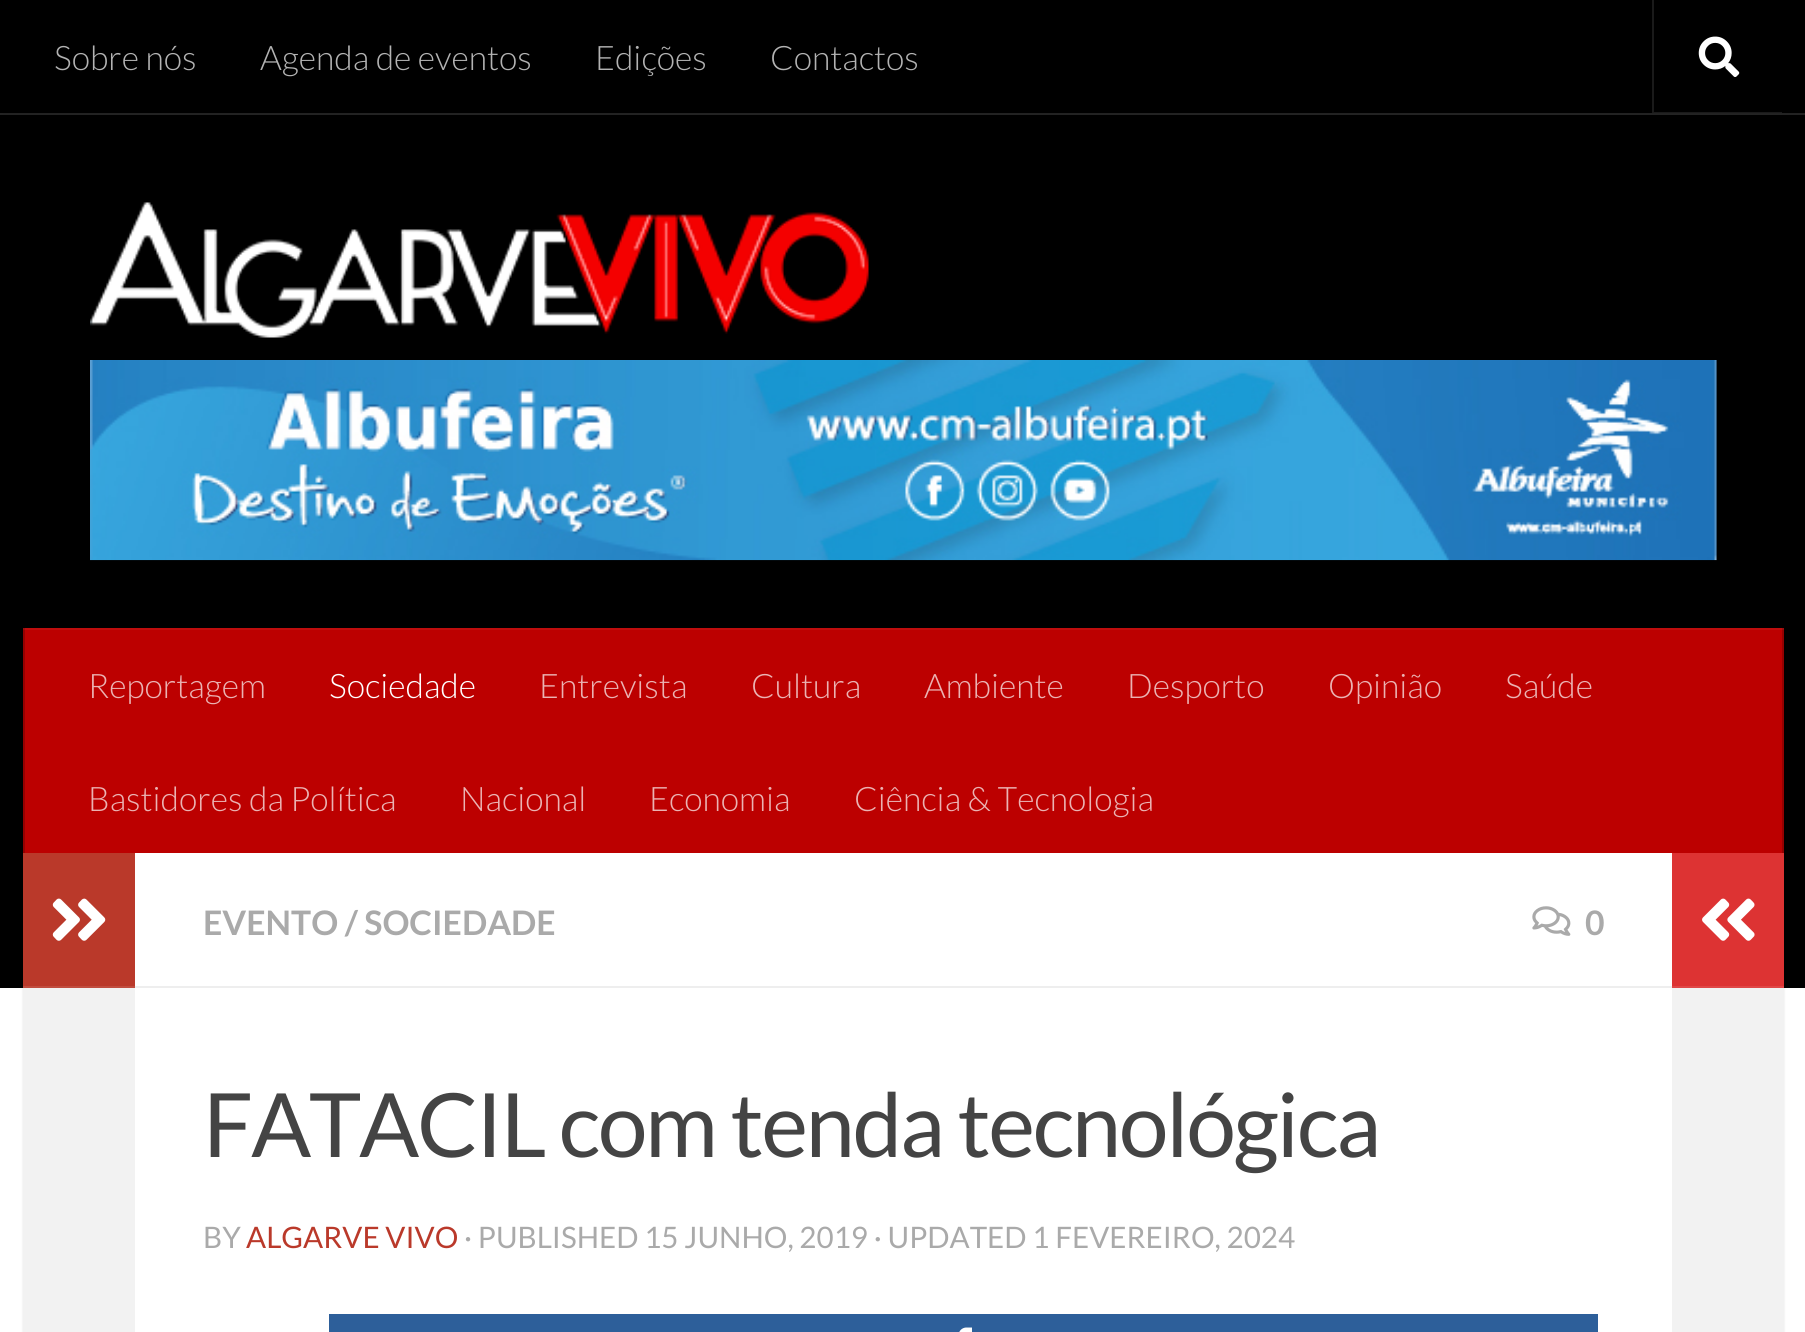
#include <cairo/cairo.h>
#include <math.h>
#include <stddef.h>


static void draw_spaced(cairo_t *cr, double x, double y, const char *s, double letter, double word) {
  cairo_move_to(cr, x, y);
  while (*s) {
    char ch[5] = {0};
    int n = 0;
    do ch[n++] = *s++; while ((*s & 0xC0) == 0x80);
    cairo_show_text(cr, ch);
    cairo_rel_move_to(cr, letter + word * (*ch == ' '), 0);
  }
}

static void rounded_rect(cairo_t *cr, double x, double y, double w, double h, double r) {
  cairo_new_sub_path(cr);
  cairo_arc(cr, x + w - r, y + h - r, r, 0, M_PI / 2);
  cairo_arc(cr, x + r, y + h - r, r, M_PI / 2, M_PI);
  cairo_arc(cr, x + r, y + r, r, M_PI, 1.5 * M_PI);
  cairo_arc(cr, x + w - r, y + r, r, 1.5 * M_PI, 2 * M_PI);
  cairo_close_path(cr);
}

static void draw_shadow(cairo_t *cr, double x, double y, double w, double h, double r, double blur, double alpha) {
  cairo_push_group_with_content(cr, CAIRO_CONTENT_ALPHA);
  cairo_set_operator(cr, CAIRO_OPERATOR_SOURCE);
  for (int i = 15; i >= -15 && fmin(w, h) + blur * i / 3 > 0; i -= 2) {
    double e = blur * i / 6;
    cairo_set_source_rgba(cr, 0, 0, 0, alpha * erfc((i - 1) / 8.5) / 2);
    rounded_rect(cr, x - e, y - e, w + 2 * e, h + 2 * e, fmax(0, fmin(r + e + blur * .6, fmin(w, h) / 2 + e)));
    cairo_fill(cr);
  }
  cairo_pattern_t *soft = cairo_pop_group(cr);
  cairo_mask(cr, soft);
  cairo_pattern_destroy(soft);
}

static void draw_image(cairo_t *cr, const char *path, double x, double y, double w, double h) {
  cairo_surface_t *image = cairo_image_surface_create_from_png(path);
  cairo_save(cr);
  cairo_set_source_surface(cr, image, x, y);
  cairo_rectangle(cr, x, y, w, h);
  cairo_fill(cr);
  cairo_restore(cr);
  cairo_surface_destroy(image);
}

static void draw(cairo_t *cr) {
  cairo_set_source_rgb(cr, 1, 1, 1);
  cairo_paint(cr);
  cairo_set_source_rgb(cr, 0, 0, 0);
  draw_shadow(cr, 23, 855, 1761, 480, 0, 1, 0.1);
  cairo_set_source_rgb(cr, 0, 0, 0);
  cairo_rectangle(cr, 0, 115, 1805, 873);
  cairo_fill(cr);
  cairo_set_source_rgb(cr, 38 / 255.0, 38 / 255.0, 38 / 255.0);
  cairo_new_path(cr);
  cairo_move_to(cr, 0, 112);
  cairo_line_to(cr, 0, 115);
  cairo_line_to(cr, 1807, 115);
  cairo_line_to(cr, 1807, 2);
  cairo_line_to(cr, 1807, 112);
  cairo_close_path(cr);
  cairo_fill(cr);
  cairo_set_source_rgb(cr, 0, 0, 0);
  draw_shadow(cr, 0, 0, 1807, 113, 0, 5.5, 0.2);
  cairo_set_source_rgb(cr, 0, 0, 0);
  cairo_rectangle(cr, 0, 0, 1805, 113);
  cairo_fill(cr);
  cairo_set_source_rgb(cr, 26 / 255.0, 26 / 255.0, 26 / 255.0);
  cairo_new_path(cr);
  cairo_move_to(cr, 1652, 0);
  cairo_line_to(cr, 1652, 113);
  cairo_line_to(cr, 1782, 113);
  cairo_line_to(cr, 1782, 112);
  cairo_line_to(cr, 1654, 112);
  cairo_line_to(cr, 1654, 0);
  cairo_close_path(cr);
  cairo_fill(cr);
  draw_image(cr, "images/1.png", 1698, 36, 42, 41);
  draw_image(cr, "images/2.png", 90, 202, 779, 136);
  draw_image(cr, "images/3.png", 90, 360, 1627, 201);
  cairo_set_source_rgb(cr, 188 / 255.0, 0, 0);
  cairo_rectangle(cr, 25, 630, 1757, 223);
  cairo_fill(cr);
  cairo_set_source_rgb(cr, 191 / 255.0, 13 / 255.0, 13 / 255.0);
  cairo_rectangle(cr, 23, 628, 1761, 2);
  cairo_fill(cr);
  cairo_set_source_rgb(cr, 150 / 255.0, 0, 0);
  cairo_rectangle(cr, 1782, 628, 2, 225);
  cairo_fill(cr);
  cairo_set_source_rgb(cr, 155 / 255.0, 13 / 255.0, 13 / 255.0);
  cairo_rectangle(cr, 1782, 628, 2, 2);
  cairo_fill(cr);
  cairo_set_source_rgb(cr, 150 / 255.0, 0, 0);
  cairo_rectangle(cr, 23, 628, 2, 225);
  cairo_fill(cr);
  cairo_set_source_rgb(cr, 155 / 255.0, 13 / 255.0, 13 / 255.0);
  cairo_rectangle(cr, 23, 628, 2, 2);
  cairo_fill(cr);
  cairo_set_source_rgb(cr, 1, 1, 1);
  cairo_rectangle(cr, 135, 853, 1537, 479);
  cairo_fill(cr);
  cairo_set_source_rgb(cr, 242 / 255.0, 242 / 255.0, 242 / 255.0);
  cairo_rectangle(cr, 23, 988, 112, 344);
  cairo_fill(cr);
  cairo_set_source_rgb(cr, 186 / 255.0, 57 / 255.0, 42 / 255.0);
  cairo_rectangle(cr, 23, 853, 112, 133);
  cairo_fill(cr);
  cairo_set_source_rgb(cr, 193 / 255.0, 77 / 255.0, 63 / 255.0);
  cairo_rectangle(cr, 23, 986, 112, 2);
  cairo_fill(cr);
  draw_image(cr, "images/4.png", 52, 898, 54, 43);
  cairo_set_source_rgb(cr, 238 / 255.0, 238 / 255.0, 238 / 255.0);
  cairo_rectangle(cr, 135, 986, 1537, 2);
  cairo_fill(cr);
  draw_image(cr, "images/5.png", 1532, 906, 39, 30);
  cairo_set_source_rgb(cr, 45 / 255.0, 95 / 255.0, 154 / 255.0);
  cairo_rectangle(cr, 329, 1314, 1269, 18);
  cairo_fill(cr);
  draw_image(cr, "images/6.png", 959, 1327, 13, 5);
  cairo_set_source_rgb(cr, 221 / 255.0, 51 / 255.0, 51 / 255.0);
  cairo_rectangle(cr, 1672, 853, 112, 133);
  cairo_fill(cr);
  cairo_set_source_rgb(cr, 224 / 255.0, 71 / 255.0, 71 / 255.0);
  cairo_rectangle(cr, 1672, 986, 112, 2);
  cairo_fill(cr);
  draw_image(cr, "images/7.png", 1702, 898, 53, 43);
  cairo_set_source_rgb(cr, 242 / 255.0, 242 / 255.0, 242 / 255.0);
  cairo_rectangle(cr, 1672, 988, 112, 344);
  cairo_fill(cr);
  cairo_select_font_face(cr, "Lato Light", CAIRO_FONT_SLANT_NORMAL, CAIRO_FONT_WEIGHT_NORMAL);
  cairo_set_font_size(cr, 33.75);
  cairo_set_source_rgb(cr, 179 / 255.0, 179 / 255.0, 179 / 255.0);
  cairo_move_to(cr, 54, 70);
  cairo_show_text(cr, "Sobre nós");
  cairo_move_to(cr, 260, 70);
  cairo_show_text(cr, "Agenda de eventos");
  cairo_move_to(cr, 595, 70);
  cairo_show_text(cr, "Edições");
  cairo_move_to(cr, 770, 70);
  cairo_show_text(cr, "Contactos");
  cairo_set_source_rgb(cr, 235 / 255.0, 179 / 255.0, 179 / 255.0);
  cairo_move_to(cr, 88, 698);
  cairo_show_text(cr, "Reportagem");
  cairo_set_source_rgb(cr, 1, 1, 1);
  cairo_move_to(cr, 329, 698);
  cairo_show_text(cr, "Sociedade");
  cairo_set_source_rgb(cr, 235 / 255.0, 179 / 255.0, 179 / 255.0);
  cairo_move_to(cr, 539, 698);
  cairo_show_text(cr, "Entrevista");
  cairo_move_to(cr, 751, 698);
  cairo_show_text(cr, "Cultura");
  cairo_move_to(cr, 924, 698);
  cairo_show_text(cr, "Ambiente");
  cairo_move_to(cr, 1127, 698);
  cairo_show_text(cr, "Desporto");
  cairo_move_to(cr, 1328, 698);
  cairo_show_text(cr, "Opinião");
  cairo_move_to(cr, 1505, 698);
  cairo_show_text(cr, "Saúde");
  cairo_move_to(cr, 88, 811);
  cairo_show_text(cr, "Bastidores da Política");
  cairo_move_to(cr, 460, 811);
  cairo_show_text(cr, "Nacional");
  cairo_move_to(cr, 649, 811);
  cairo_show_text(cr, "Economia");
  cairo_move_to(cr, 854, 811);
  cairo_show_text(cr, "Ciência & Tecnologia");
  cairo_select_font_face(cr, "Lato", CAIRO_FONT_SLANT_NORMAL, CAIRO_FONT_WEIGHT_BOLD);
  cairo_set_source_rgb(cr, 170 / 255.0, 170 / 255.0, 170 / 255.0);
  cairo_move_to(cr, 203, 935);
  cairo_show_text(cr, "EVENTO / SOCIEDADE");
  cairo_move_to(cr, 1585, 935);
  cairo_show_text(cr, "0");
  cairo_select_font_face(cr, "Lato", CAIRO_FONT_SLANT_NORMAL, CAIRO_FONT_WEIGHT_NORMAL);
  cairo_set_font_size(cr, 88.7);
  cairo_set_source_rgb(cr, 68 / 255.0, 68 / 255.0, 68 / 255.0);
  draw_spaced(cr, 203, 1157, "FATACIL com tenda tecnológica", -2.25, 0);
  cairo_set_font_size(cr, 29.6);
  cairo_set_source_rgb(cr, 170 / 255.0, 170 / 255.0, 170 / 255.0);
  cairo_move_to(cr, 203, 1248);
  cairo_show_text(cr, "BY");
  cairo_set_source_rgb(cr, 186 / 255.0, 57 / 255.0, 42 / 255.0);
  cairo_move_to(cr, 246, 1248);
  cairo_show_text(cr, "ALGARVE VIVO");
  cairo_set_source_rgb(cr, 170 / 255.0, 170 / 255.0, 170 / 255.0);
  cairo_move_to(cr, 464, 1248);
  cairo_show_text(cr, "· PUBLISHED 15 JUNHO, 2019 · UPDATED 1 FEVEREIRO, 2024");
}

int main(void) {
  cairo_surface_t *surface = cairo_image_surface_create(CAIRO_FORMAT_RGB24, 1805, 1332);
  cairo_t *cr = cairo_create(surface);
  cairo_font_options_t *options = cairo_font_options_create();
  cairo_font_options_set_hint_metrics(options, CAIRO_HINT_METRICS_OFF);
  cairo_font_options_set_hint_style(options, CAIRO_HINT_STYLE_NONE);
  cairo_set_font_options(cr, options);
  cairo_set_miter_limit(cr, 4);
  draw(cr);
  cairo_surface_write_to_png(surface, "out.png");
  cairo_font_options_destroy(options);
  cairo_destroy(cr);
  cairo_surface_destroy(surface);
  return 0;
}
